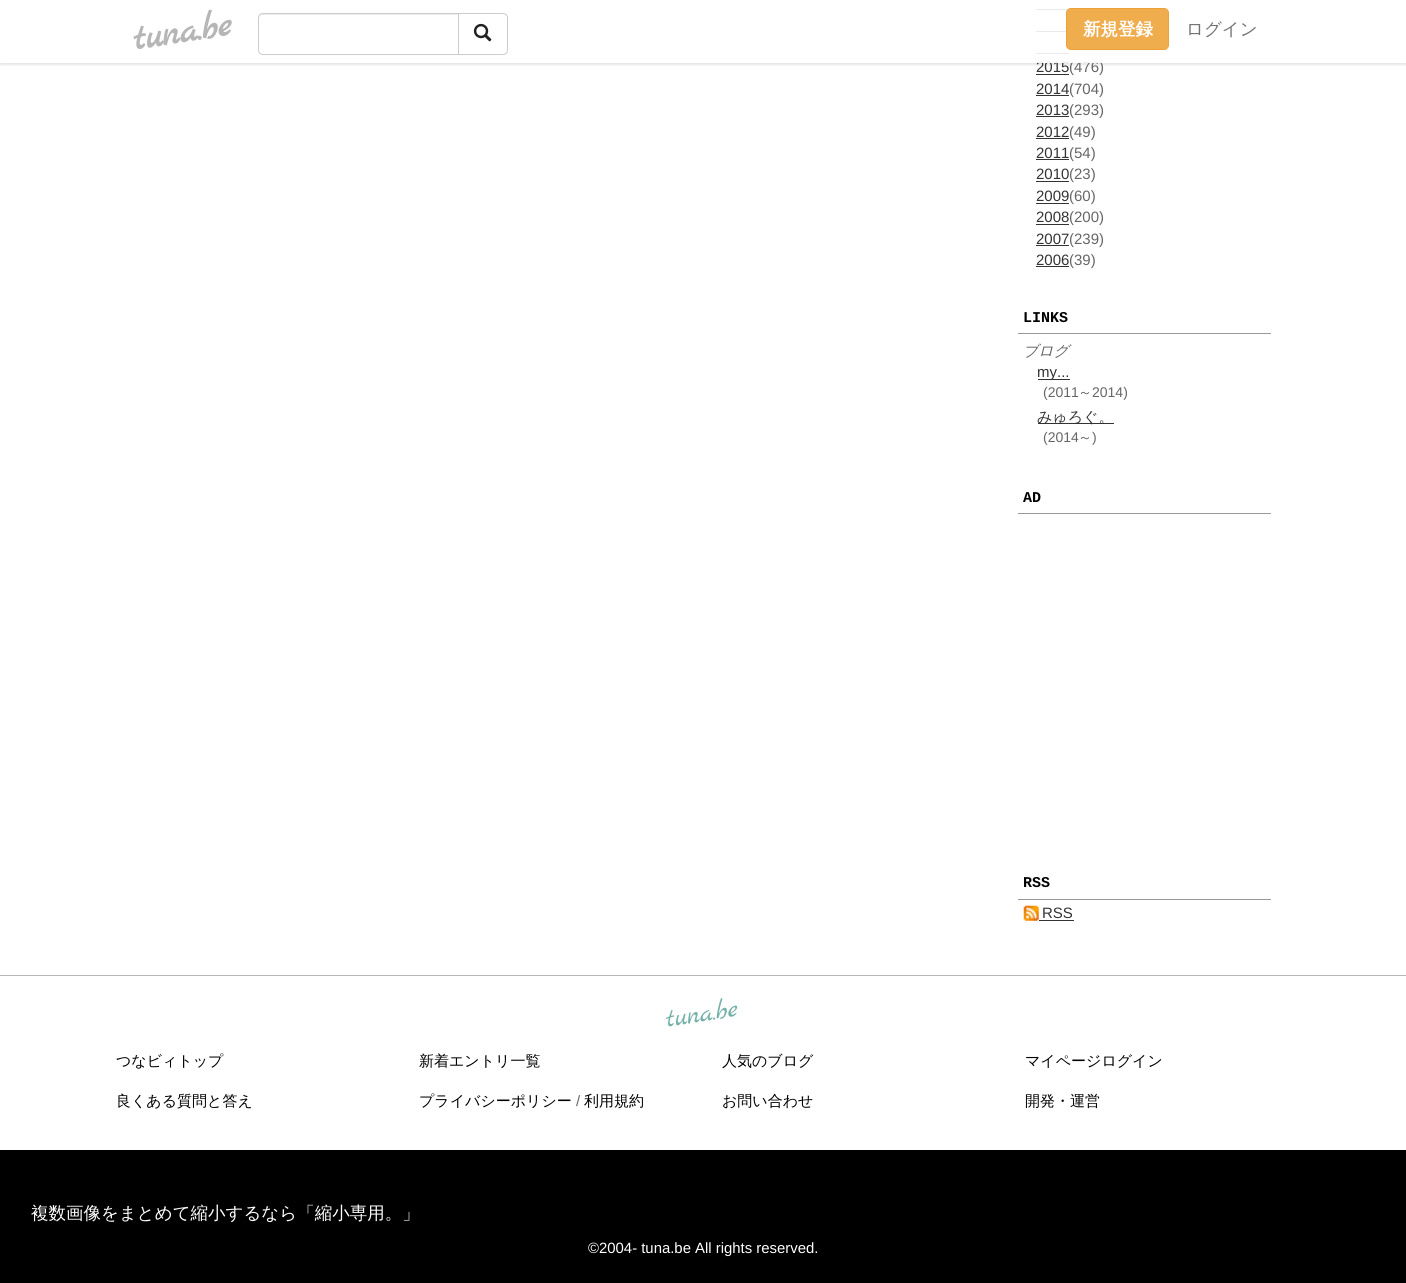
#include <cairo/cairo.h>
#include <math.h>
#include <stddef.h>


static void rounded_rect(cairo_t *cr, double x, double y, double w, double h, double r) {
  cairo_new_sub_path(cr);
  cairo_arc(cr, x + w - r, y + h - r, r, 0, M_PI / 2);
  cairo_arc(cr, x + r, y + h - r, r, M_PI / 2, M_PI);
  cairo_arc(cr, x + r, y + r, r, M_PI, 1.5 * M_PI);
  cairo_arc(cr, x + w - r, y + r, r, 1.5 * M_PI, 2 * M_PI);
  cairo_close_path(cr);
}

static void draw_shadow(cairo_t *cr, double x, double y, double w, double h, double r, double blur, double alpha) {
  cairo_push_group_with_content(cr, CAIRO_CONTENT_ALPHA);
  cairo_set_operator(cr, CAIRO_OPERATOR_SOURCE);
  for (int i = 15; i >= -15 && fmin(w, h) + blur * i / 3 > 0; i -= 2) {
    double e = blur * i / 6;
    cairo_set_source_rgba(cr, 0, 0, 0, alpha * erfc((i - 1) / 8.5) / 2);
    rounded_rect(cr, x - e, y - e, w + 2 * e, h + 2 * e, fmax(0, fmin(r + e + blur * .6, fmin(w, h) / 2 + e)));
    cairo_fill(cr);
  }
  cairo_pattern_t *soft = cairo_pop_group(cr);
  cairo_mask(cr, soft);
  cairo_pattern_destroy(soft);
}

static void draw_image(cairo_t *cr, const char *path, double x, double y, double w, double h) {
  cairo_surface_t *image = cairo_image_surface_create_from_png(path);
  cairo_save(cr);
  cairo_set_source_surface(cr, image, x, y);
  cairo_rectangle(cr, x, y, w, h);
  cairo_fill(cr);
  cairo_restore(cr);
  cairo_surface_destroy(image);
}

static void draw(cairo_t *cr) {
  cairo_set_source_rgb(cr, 1, 1, 1);
  cairo_paint(cr);
  cairo_set_source_rgb(cr, 51 / 255.0, 51 / 255.0, 51 / 255.0);
  cairo_rectangle(cr, 1036, 9, 33, 1);
  cairo_fill(cr);
  cairo_rectangle(cr, 1036, 31, 33, 1);
  cairo_fill(cr);
  cairo_rectangle(cr, 1036, 53, 33, 1);
  cairo_fill(cr);
  cairo_save(cr);
  cairo_set_fill_rule(cr, CAIRO_FILL_RULE_EVEN_ODD);
  cairo_new_path(cr);
  cairo_move_to(cr, 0, 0);
  cairo_line_to(cr, 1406, 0);
  cairo_line_to(cr, 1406, 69);
  cairo_line_to(cr, 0, 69);
  cairo_close_path(cr);
  cairo_move_to(cr, 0, 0);
  cairo_line_to(cr, 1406, 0);
  cairo_line_to(cr, 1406, 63);
  cairo_line_to(cr, 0, 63);
  cairo_close_path(cr);
  cairo_clip(cr);
  cairo_set_source_rgb(cr, 0, 0, 0);
  draw_shadow(cr, 0, 3, 1406, 62, 0, 1, 0.1);
  cairo_restore(cr);
  cairo_rectangle(cr, 1036, 74, 33, 1);
  cairo_fill(cr);
  cairo_rectangle(cr, 1036, 95, 33, 1);
  cairo_fill(cr);
  cairo_rectangle(cr, 1036, 116, 33, 1);
  cairo_fill(cr);
  cairo_rectangle(cr, 1036, 138, 33, 1);
  cairo_fill(cr);
  cairo_rectangle(cr, 1036, 159, 33, 1);
  cairo_fill(cr);
  cairo_rectangle(cr, 1036, 181, 33, 1);
  cairo_fill(cr);
  cairo_rectangle(cr, 1036, 203, 33, 1);
  cairo_fill(cr);
  cairo_rectangle(cr, 1036, 224, 33, 1);
  cairo_fill(cr);
  cairo_rectangle(cr, 1036, 245, 33, 1);
  cairo_fill(cr);
  cairo_rectangle(cr, 1036, 266, 33, 1);
  cairo_fill(cr);
  cairo_set_source_rgb(cr, 153 / 255.0, 153 / 255.0, 153 / 255.0);
  cairo_rectangle(cr, 1018, 333, 253, 1);
  cairo_fill(cr);
  cairo_set_source_rgb(cr, 51 / 255.0, 51 / 255.0, 51 / 255.0);
  cairo_rectangle(cr, 1038, 379, 32, 1);
  cairo_fill(cr);
  cairo_rectangle(cr, 1038, 423, 76, 1);
  cairo_fill(cr);
  cairo_set_source_rgb(cr, 153 / 255.0, 153 / 255.0, 153 / 255.0);
  cairo_rectangle(cr, 1018, 513, 253, 1);
  cairo_fill(cr);
  cairo_rectangle(cr, 1018, 899, 253, 1);
  cairo_fill(cr);
  draw_image(cr, "images/2.png", 1023, 905, 16, 16);
  cairo_set_source_rgb(cr, 51 / 255.0, 51 / 255.0, 51 / 255.0);
  cairo_rectangle(cr, 1039, 920, 35, 1);
  cairo_fill(cr);
  cairo_set_source_rgb(cr, 182 / 255.0, 182 / 255.0, 182 / 255.0);
  cairo_rectangle(cr, 0, 975, 1406, 1);
  cairo_fill(cr);
  cairo_set_source_rgb(cr, 0, 0, 0);
  cairo_rectangle(cr, 0, 1150, 1406, 133);
  cairo_fill(cr);
  cairo_select_font_face(cr, "Liberation Sans", CAIRO_FONT_SLANT_NORMAL, CAIRO_FONT_WEIGHT_NORMAL);
  cairo_set_font_size(cr, 15);
  cairo_set_source_rgb(cr, 51 / 255.0, 51 / 255.0, 51 / 255.0);
  cairo_move_to(cr, 1036, 72);
  cairo_show_text(cr, "2015");
  cairo_set_source_rgb(cr, 102 / 255.0, 102 / 255.0, 102 / 255.0);
  cairo_move_to(cr, 1069, 72);
  cairo_show_text(cr, "(476)");
  cairo_set_source_rgba(cr, 1, 1, 1, 0.9);
  cairo_rectangle(cr, 0, 9, 1406, 54);
  cairo_fill(cr);
  cairo_set_source_rgb(cr, 236 / 255.0, 236 / 255.0, 236 / 255.0);
  cairo_new_path(cr);
  cairo_move_to(cr, 262, 15);
  cairo_line_to(cr, 458, 15);
  cairo_line_to(cr, 458, 14);
  cairo_line_to(cr, 263, 14);
  cairo_curve_to(cr, 260, 14, 259, 16, 259, 19);
  cairo_curve_to(cr, 259, 17, 260, 15, 262, 15);
  cairo_close_path(cr);
  cairo_fill(cr);
  cairo_new_path(cr);
  cairo_move_to(cr, 263, 13.5);
  cairo_line_to(cr, 458.5, 13.5);
  cairo_line_to(cr, 458.5, 54.5);
  cairo_line_to(cr, 263, 54.5);
  cairo_curve_to(cr, 260.5, 54.5, 258.5, 52.5, 258.5, 50);
  cairo_line_to(cr, 258.5, 18);
  cairo_curve_to(cr, 258.5, 15.5, 260.5, 13.5, 263, 13.5);
  cairo_close_path(cr);
  cairo_set_source_rgb(cr, 204 / 255.0, 204 / 255.0, 204 / 255.0);
  cairo_set_line_width(cr, 1);
  cairo_stroke(cr);
  cairo_set_source_rgb(cr, 1, 1, 1);
  cairo_new_path(cr);
  cairo_move_to(cr, 458.5, 13.5);
  cairo_line_to(cr, 503, 13.5);
  cairo_curve_to(cr, 505.5, 13.5, 507.5, 15.5, 507.5, 18);
  cairo_line_to(cr, 507.5, 50);
  cairo_curve_to(cr, 507.5, 52.5, 505.5, 54.5, 503, 54.5);
  cairo_line_to(cr, 458.5, 54.5);
  cairo_close_path(cr);
  cairo_fill_preserve(cr);
  cairo_set_source_rgb(cr, 204 / 255.0, 204 / 255.0, 204 / 255.0);
  cairo_stroke(cr);
  draw_image(cr, "images/1.png", 473, 23, 19, 19);
  cairo_select_font_face(cr, "Marck Script", CAIRO_FONT_SLANT_NORMAL, CAIRO_FONT_WEIGHT_BOLD);
  cairo_set_font_size(cr, 37.5);
  cairo_set_source_rgb(cr, 182 / 255.0, 182 / 255.0, 182 / 255.0);
  cairo_save(cr);
  cairo_translate(cr, 135, 50);
  cairo_rotate(cr, -9 * M_PI / 180);
  cairo_move_to(cr, 0, 0);
  cairo_show_text(cr, "tuna.be");
  cairo_restore(cr);
  cairo_select_font_face(cr, "WenQuanYi Zen Hei Medium", CAIRO_FONT_SLANT_NORMAL, CAIRO_FONT_WEIGHT_NORMAL);
  cairo_set_font_size(cr, 17.5);
  cairo_set_source_rgb(cr, 114 / 255.0, 114 / 255.0, 114 / 255.0);
  cairo_move_to(cr, 1186, 35);
  cairo_show_text(cr, "ログイン");
  cairo_set_source_rgb(cr, 240 / 255.0, 173 / 255.0, 78 / 255.0);
  rounded_rect(cr, 1066.5, 8.5, 102, 41, 4.5);
  cairo_fill_preserve(cr);
  cairo_set_source_rgb(cr, 238 / 255.0, 162 / 255.0, 54 / 255.0);
  cairo_stroke(cr);
  cairo_select_font_face(cr, "WenQuanYi Zen Hei", CAIRO_FONT_SLANT_NORMAL, CAIRO_FONT_WEIGHT_BOLD);
  cairo_set_source_rgb(cr, 1, 1, 1);
  cairo_move_to(cr, 1083, 35);
  cairo_show_text(cr, "新規登録");
  cairo_select_font_face(cr, "Liberation Sans", CAIRO_FONT_SLANT_NORMAL, CAIRO_FONT_WEIGHT_NORMAL);
  cairo_set_font_size(cr, 15);
  cairo_set_source_rgb(cr, 51 / 255.0, 51 / 255.0, 51 / 255.0);
  cairo_move_to(cr, 1036, 94);
  cairo_show_text(cr, "2014");
  cairo_set_source_rgb(cr, 102 / 255.0, 102 / 255.0, 102 / 255.0);
  cairo_move_to(cr, 1069, 94);
  cairo_show_text(cr, "(704)");
  cairo_set_source_rgb(cr, 51 / 255.0, 51 / 255.0, 51 / 255.0);
  cairo_move_to(cr, 1036, 115);
  cairo_show_text(cr, "2013");
  cairo_set_source_rgb(cr, 102 / 255.0, 102 / 255.0, 102 / 255.0);
  cairo_move_to(cr, 1069, 115);
  cairo_show_text(cr, "(293)");
  cairo_set_source_rgb(cr, 51 / 255.0, 51 / 255.0, 51 / 255.0);
  cairo_move_to(cr, 1036, 137);
  cairo_show_text(cr, "2012");
  cairo_set_source_rgb(cr, 102 / 255.0, 102 / 255.0, 102 / 255.0);
  cairo_move_to(cr, 1069, 137);
  cairo_show_text(cr, "(49)");
  cairo_set_source_rgb(cr, 51 / 255.0, 51 / 255.0, 51 / 255.0);
  cairo_move_to(cr, 1036, 158);
  cairo_show_text(cr, "2011");
  cairo_set_source_rgb(cr, 102 / 255.0, 102 / 255.0, 102 / 255.0);
  cairo_move_to(cr, 1069, 158);
  cairo_show_text(cr, "(54)");
  cairo_set_source_rgb(cr, 51 / 255.0, 51 / 255.0, 51 / 255.0);
  cairo_move_to(cr, 1036, 179);
  cairo_show_text(cr, "2010");
  cairo_set_source_rgb(cr, 102 / 255.0, 102 / 255.0, 102 / 255.0);
  cairo_move_to(cr, 1069, 179);
  cairo_show_text(cr, "(23)");
  cairo_set_source_rgb(cr, 51 / 255.0, 51 / 255.0, 51 / 255.0);
  cairo_move_to(cr, 1036, 201);
  cairo_show_text(cr, "2009");
  cairo_set_source_rgb(cr, 102 / 255.0, 102 / 255.0, 102 / 255.0);
  cairo_move_to(cr, 1069, 201);
  cairo_show_text(cr, "(60)");
  cairo_set_source_rgb(cr, 51 / 255.0, 51 / 255.0, 51 / 255.0);
  cairo_move_to(cr, 1036, 222);
  cairo_show_text(cr, "2008");
  cairo_set_source_rgb(cr, 102 / 255.0, 102 / 255.0, 102 / 255.0);
  cairo_move_to(cr, 1069, 222);
  cairo_show_text(cr, "(200)");
  cairo_set_source_rgb(cr, 51 / 255.0, 51 / 255.0, 51 / 255.0);
  cairo_move_to(cr, 1036, 244);
  cairo_show_text(cr, "2007");
  cairo_set_source_rgb(cr, 102 / 255.0, 102 / 255.0, 102 / 255.0);
  cairo_move_to(cr, 1069, 244);
  cairo_show_text(cr, "(239)");
  cairo_set_source_rgb(cr, 51 / 255.0, 51 / 255.0, 51 / 255.0);
  cairo_move_to(cr, 1036, 265);
  cairo_show_text(cr, "2006");
  cairo_set_source_rgb(cr, 102 / 255.0, 102 / 255.0, 102 / 255.0);
  cairo_move_to(cr, 1069, 265);
  cairo_show_text(cr, "(39)");
  cairo_select_font_face(cr, "Liberation Mono", CAIRO_FONT_SLANT_NORMAL, CAIRO_FONT_WEIGHT_BOLD);
  cairo_set_source_rgb(cr, 0, 0, 0);
  cairo_move_to(cr, 1023, 322);
  cairo_show_text(cr, "LINKS");
  cairo_select_font_face(cr, "WenQuanYi Zen Hei Medium", CAIRO_FONT_SLANT_ITALIC, CAIRO_FONT_WEIGHT_NORMAL);
  cairo_set_source_rgb(cr, 102 / 255.0, 102 / 255.0, 102 / 255.0);
  cairo_move_to(cr, 1023, 356);
  cairo_show_text(cr, "ブログ");
  cairo_select_font_face(cr, "Liberation Sans", CAIRO_FONT_SLANT_NORMAL, CAIRO_FONT_WEIGHT_NORMAL);
  cairo_set_source_rgb(cr, 51 / 255.0, 51 / 255.0, 51 / 255.0);
  cairo_move_to(cr, 1037, 377);
  cairo_show_text(cr, "my...");
  cairo_set_font_size(cr, 14);
  cairo_set_source_rgb(cr, 102 / 255.0, 102 / 255.0, 102 / 255.0);
  cairo_move_to(cr, 1043, 397);
  cairo_show_text(cr, "(2011");
  cairo_select_font_face(cr, "WenQuanYi Zen Hei Medium", CAIRO_FONT_SLANT_NORMAL, CAIRO_FONT_WEIGHT_NORMAL);
  cairo_move_to(cr, 1078, 397);
  cairo_show_text(cr, "～");
  cairo_select_font_face(cr, "Liberation Sans", CAIRO_FONT_SLANT_NORMAL, CAIRO_FONT_WEIGHT_NORMAL);
  cairo_move_to(cr, 1092, 397);
  cairo_show_text(cr, "2014)");
  cairo_select_font_face(cr, "WenQuanYi Zen Hei Medium", CAIRO_FONT_SLANT_NORMAL, CAIRO_FONT_WEIGHT_NORMAL);
  cairo_set_font_size(cr, 15);
  cairo_set_source_rgb(cr, 51 / 255.0, 51 / 255.0, 51 / 255.0);
  cairo_move_to(cr, 1037, 422);
  cairo_show_text(cr, "みゅろぐ。");
  cairo_select_font_face(cr, "Liberation Sans", CAIRO_FONT_SLANT_NORMAL, CAIRO_FONT_WEIGHT_NORMAL);
  cairo_set_font_size(cr, 14);
  cairo_set_source_rgb(cr, 102 / 255.0, 102 / 255.0, 102 / 255.0);
  cairo_move_to(cr, 1043, 442);
  cairo_show_text(cr, "(2014");
  cairo_select_font_face(cr, "WenQuanYi Zen Hei Medium", CAIRO_FONT_SLANT_NORMAL, CAIRO_FONT_WEIGHT_NORMAL);
  cairo_move_to(cr, 1078, 442);
  cairo_show_text(cr, "～");
  cairo_select_font_face(cr, "Liberation Sans", CAIRO_FONT_SLANT_NORMAL, CAIRO_FONT_WEIGHT_NORMAL);
  cairo_move_to(cr, 1092, 442);
  cairo_show_text(cr, ")");
  cairo_select_font_face(cr, "Liberation Mono", CAIRO_FONT_SLANT_NORMAL, CAIRO_FONT_WEIGHT_BOLD);
  cairo_set_font_size(cr, 15);
  cairo_set_source_rgb(cr, 0, 0, 0);
  cairo_move_to(cr, 1023, 502);
  cairo_show_text(cr, "AD");
  cairo_move_to(cr, 1023, 887);
  cairo_show_text(cr, "RSS");
  cairo_select_font_face(cr, "Liberation Sans", CAIRO_FONT_SLANT_NORMAL, CAIRO_FONT_WEIGHT_NORMAL);
  cairo_set_source_rgb(cr, 51 / 255.0, 51 / 255.0, 51 / 255.0);
  cairo_move_to(cr, 1042, 918);
  cairo_show_text(cr, "RSS");
  cairo_select_font_face(cr, "Marck Script", CAIRO_FONT_SLANT_NORMAL, CAIRO_FONT_WEIGHT_NORMAL);
  cairo_set_font_size(cr, 27.5);
  cairo_set_source_rgb(cr, 117 / 255.0, 177 / 255.0, 169 / 255.0);
  cairo_save(cr);
  cairo_translate(cr, 667, 1027);
  cairo_rotate(cr, -9 * M_PI / 180);
  cairo_move_to(cr, 0, 0);
  cairo_show_text(cr, "tuna.be");
  cairo_restore(cr);
  cairo_select_font_face(cr, "WenQuanYi Zen Hei Medium", CAIRO_FONT_SLANT_NORMAL, CAIRO_FONT_WEIGHT_NORMAL);
  cairo_set_font_size(cr, 15);
  cairo_set_source_rgb(cr, 0, 0, 0);
  cairo_move_to(cr, 116, 1066);
  cairo_show_text(cr, "つなビィトップ");
  cairo_move_to(cr, 419, 1066);
  cairo_show_text(cr, "新着エントリ一覧");
  cairo_move_to(cr, 722, 1066);
  cairo_show_text(cr, "人気のブログ");
  cairo_move_to(cr, 1025, 1066);
  cairo_show_text(cr, "マイページログイン");
  cairo_move_to(cr, 116, 1106);
  cairo_show_text(cr, "良くある質問と答え");
  cairo_move_to(cr, 419, 1106);
  cairo_show_text(cr, "プライバシーポリシー");
  cairo_select_font_face(cr, "Liberation Sans", CAIRO_FONT_SLANT_NORMAL, CAIRO_FONT_WEIGHT_NORMAL);
  cairo_set_source_rgb(cr, 102 / 255.0, 102 / 255.0, 102 / 255.0);
  cairo_move_to(cr, 576, 1106);
  cairo_show_text(cr, "/");
  cairo_select_font_face(cr, "WenQuanYi Zen Hei Medium", CAIRO_FONT_SLANT_NORMAL, CAIRO_FONT_WEIGHT_NORMAL);
  cairo_set_source_rgb(cr, 0, 0, 0);
  cairo_move_to(cr, 584, 1106);
  cairo_show_text(cr, "利用規約");
  cairo_move_to(cr, 722, 1106);
  cairo_show_text(cr, "お問い合わせ");
  cairo_move_to(cr, 1025, 1106);
  cairo_show_text(cr, "開発・運営");
  cairo_set_font_size(cr, 17.5);
  cairo_set_source_rgb(cr, 1, 1, 1);
  cairo_move_to(cr, 31, 1219);
  cairo_show_text(cr, "複数画像をまとめて縮小するなら「縮小専用。」");
  cairo_select_font_face(cr, "Liberation Sans", CAIRO_FONT_SLANT_NORMAL, CAIRO_FONT_WEIGHT_NORMAL);
  cairo_set_font_size(cr, 14.9);
  cairo_move_to(cr, 588, 1253);
  cairo_show_text(cr, "©2004- tuna.be All rights reserved.");
}

int main(void) {
  cairo_surface_t *surface = cairo_image_surface_create(CAIRO_FORMAT_RGB24, 1406, 1283);
  cairo_t *cr = cairo_create(surface);
  cairo_font_options_t *options = cairo_font_options_create();
  cairo_font_options_set_hint_metrics(options, CAIRO_HINT_METRICS_OFF);
  cairo_font_options_set_hint_style(options, CAIRO_HINT_STYLE_NONE);
  cairo_set_font_options(cr, options);
  cairo_set_miter_limit(cr, 4);
  draw(cr);
  cairo_surface_write_to_png(surface, "out.png");
  cairo_font_options_destroy(options);
  cairo_destroy(cr);
  cairo_surface_destroy(surface);
  return 0;
}
